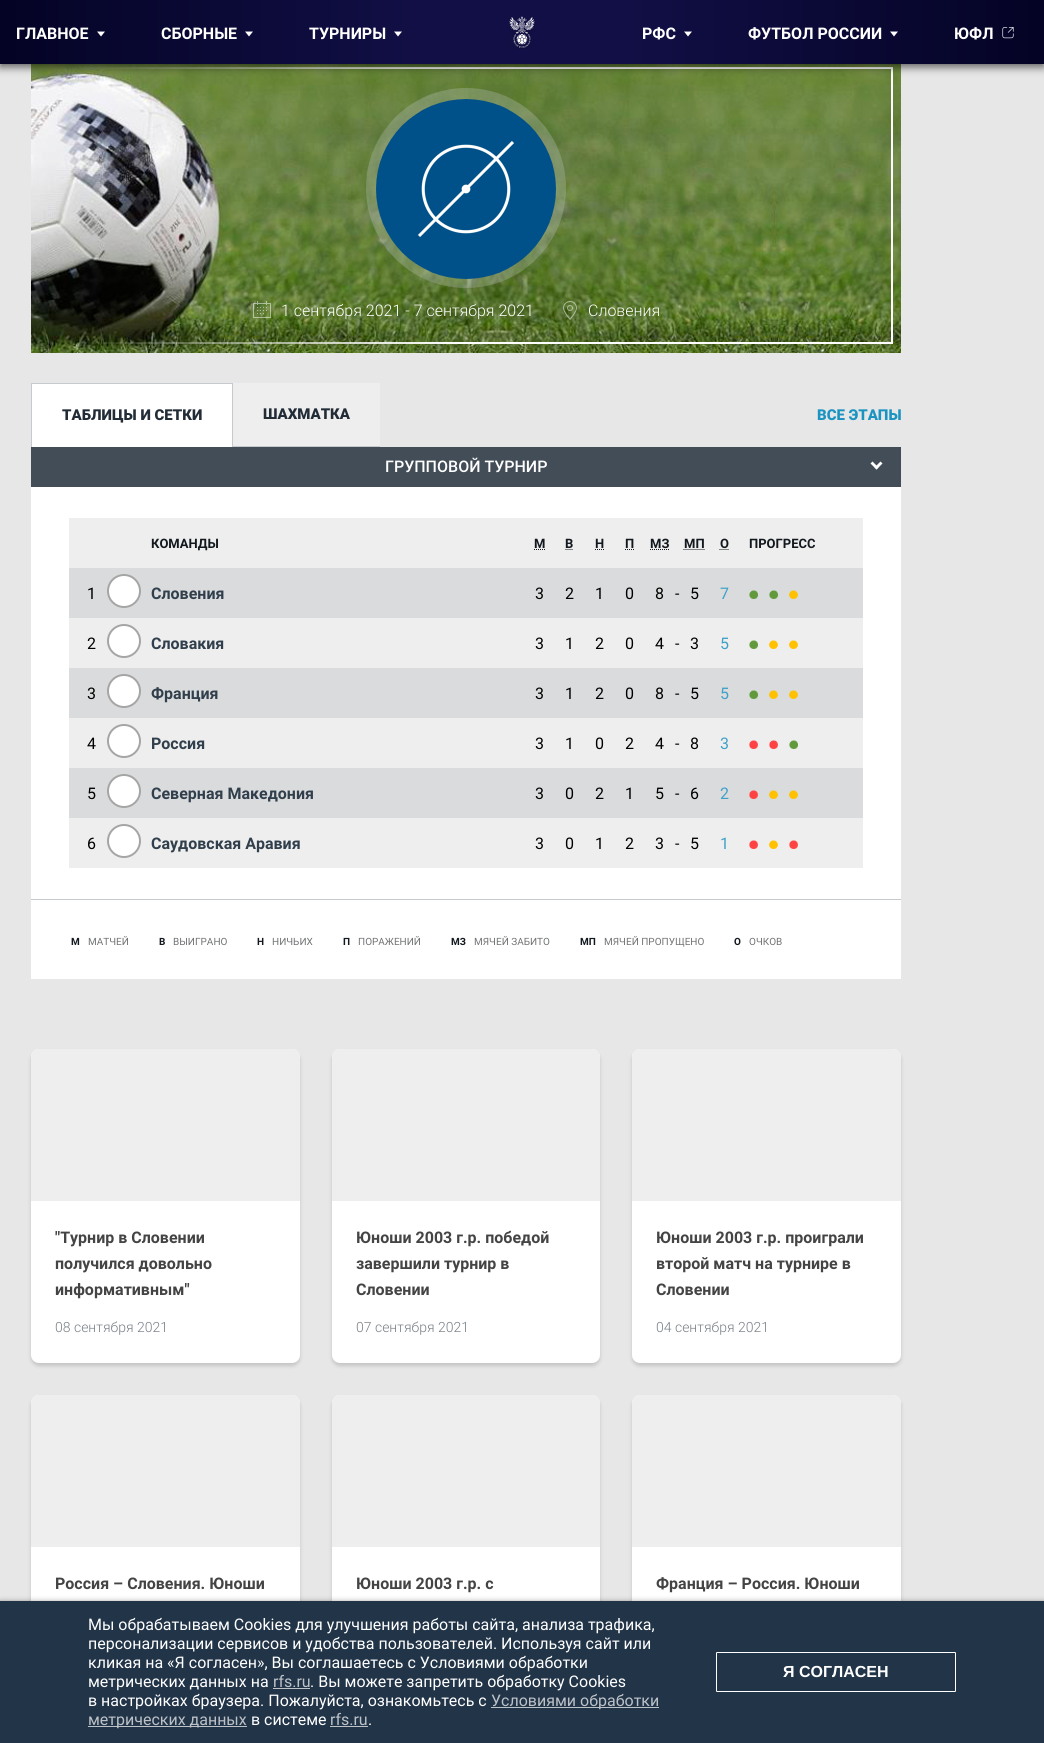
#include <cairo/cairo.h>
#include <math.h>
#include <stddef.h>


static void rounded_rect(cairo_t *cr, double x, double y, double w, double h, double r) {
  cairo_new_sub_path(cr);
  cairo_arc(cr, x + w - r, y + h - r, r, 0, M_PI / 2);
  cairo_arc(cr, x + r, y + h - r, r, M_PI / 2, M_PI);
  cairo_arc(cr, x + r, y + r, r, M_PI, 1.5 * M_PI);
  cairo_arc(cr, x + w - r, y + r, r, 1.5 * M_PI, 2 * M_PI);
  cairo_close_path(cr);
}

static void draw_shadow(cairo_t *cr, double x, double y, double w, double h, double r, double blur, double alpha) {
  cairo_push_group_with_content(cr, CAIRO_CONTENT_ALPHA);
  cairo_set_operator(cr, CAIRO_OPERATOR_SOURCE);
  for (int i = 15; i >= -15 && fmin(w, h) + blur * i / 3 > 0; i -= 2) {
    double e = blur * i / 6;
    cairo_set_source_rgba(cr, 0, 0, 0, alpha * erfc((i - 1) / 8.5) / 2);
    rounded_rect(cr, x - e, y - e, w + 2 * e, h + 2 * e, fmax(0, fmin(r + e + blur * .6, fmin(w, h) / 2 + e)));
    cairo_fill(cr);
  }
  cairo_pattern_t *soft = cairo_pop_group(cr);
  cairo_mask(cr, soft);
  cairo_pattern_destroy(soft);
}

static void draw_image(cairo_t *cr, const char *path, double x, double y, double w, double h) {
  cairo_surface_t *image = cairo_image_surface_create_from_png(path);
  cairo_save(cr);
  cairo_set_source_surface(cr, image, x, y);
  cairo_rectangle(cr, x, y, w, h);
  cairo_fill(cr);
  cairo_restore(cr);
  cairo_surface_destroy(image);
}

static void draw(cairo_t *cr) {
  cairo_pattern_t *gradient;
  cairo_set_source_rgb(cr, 231 / 255.0, 231 / 255.0, 231 / 255.0);
  cairo_paint(cr);
  draw_image(cr, "images/3.png", 31, 64, 870, 289);
  cairo_set_source_rgb(cr, 0, 0, 0);
  draw_shadow(cr, 0, 3, 1044, 64, 0, 4.5, 0.6);
  gradient = cairo_pattern_create_linear(0, 32, 1044, 32);
  cairo_pattern_add_color_stop_rgba(gradient, 0, 4 / 255.0, 3 / 255.0, 37 / 255.0, 1);
  cairo_pattern_add_color_stop_rgba(gradient, 0.4, 17 / 255.0, 15 / 255.0, 69 / 255.0, 1);
  cairo_pattern_add_color_stop_rgba(gradient, 0.6, 17 / 255.0, 15 / 255.0, 69 / 255.0, 1);
  cairo_pattern_add_color_stop_rgba(gradient, 1, 4 / 255.0, 3 / 255.0, 37 / 255.0, 1);
  cairo_set_source(cr, gradient);
  cairo_pattern_destroy(gradient);
  cairo_rectangle(cr, 0, 0, 1044, 64);
  cairo_fill(cr);
  cairo_set_source_rgb(cr, 1, 1, 1);
  cairo_new_path(cr);
  cairo_move_to(cr, 97, 31.5);
  cairo_line_to(cr, 105, 31.5);
  cairo_line_to(cr, 101, 36.5);
  cairo_close_path(cr);
  cairo_fill(cr);
  cairo_new_path(cr);
  cairo_move_to(cr, 245, 31.5);
  cairo_line_to(cr, 253, 31.5);
  cairo_line_to(cr, 249, 36.5);
  cairo_close_path(cr);
  cairo_fill(cr);
  cairo_new_path(cr);
  cairo_move_to(cr, 394, 31.5);
  cairo_line_to(cr, 402, 31.5);
  cairo_line_to(cr, 398, 36.5);
  cairo_close_path(cr);
  cairo_fill(cr);
  draw_image(cr, "images/1.png", 509, 16, 26, 33);
  cairo_new_path(cr);
  cairo_move_to(cr, 684, 31.5);
  cairo_line_to(cr, 692, 31.5);
  cairo_line_to(cr, 688, 36.5);
  cairo_close_path(cr);
  cairo_fill(cr);
  cairo_new_path(cr);
  cairo_move_to(cr, 890, 31.5);
  cairo_line_to(cr, 898, 31.5);
  cairo_line_to(cr, 894, 36.5);
  cairo_close_path(cr);
  cairo_fill(cr);
  draw_image(cr, "images/2.png", 1002, 27, 12, 12);
  cairo_set_source_rgba(cr, 192 / 255.0, 196 / 255.0, 199 / 255.0, 0.3);
  cairo_arc(cr, 466, 188, 100, 0, 2 * M_PI);
  cairo_fill(cr);
  draw_image(cr, "images/4.png", 376, 99, 180, 180);
  draw_image(cr, "images/5.png", 253, 301, 18, 17);
  draw_image(cr, "images/6.png", 563, 301, 14, 19);
  cairo_set_source_rgb(cr, 238 / 255.0, 238 / 255.0, 238 / 255.0);
  cairo_rectangle(cr, 233, 383, 147, 63);
  cairo_fill(cr);
  cairo_set_source_rgb(cr, 1, 1, 1);
  cairo_rectangle(cr, 32, 384, 200, 63);
  cairo_fill(cr);
  cairo_set_source_rgb(cr, 198 / 255.0, 201 / 255.0, 205 / 255.0);
  cairo_rectangle(cr, 31, 383, 202, 1);
  cairo_fill(cr);
  cairo_rectangle(cr, 232, 383, 1, 64);
  cairo_fill(cr);
  cairo_rectangle(cr, 31, 383, 1, 64);
  cairo_fill(cr);
  cairo_rectangle(cr, 233, 446, 147, 1);
  cairo_fill(cr);
  cairo_set_source_rgb(cr, 1, 1, 1);
  cairo_rectangle(cr, 31, 487, 870, 492);
  cairo_fill(cr);
  cairo_set_source_rgb(cr, 66 / 255.0, 77 / 255.0, 88 / 255.0);
  cairo_rectangle(cr, 31, 447, 870, 40);
  cairo_fill(cr);
  cairo_set_source_rgb(cr, 1, 1, 1);
  cairo_new_path(cr);
  cairo_move_to(cr, 880.5, 461.5);
  cairo_line_to(cr, 882.5, 463.5);
  cairo_line_to(cr, 876.5, 469.5);
  cairo_line_to(cr, 874.5, 467.5);
  cairo_close_path(cr);
  cairo_fill(cr);
  cairo_new_path(cr);
  cairo_move_to(cr, 870.5, 463.5);
  cairo_line_to(cr, 872.5, 461.5);
  cairo_line_to(cr, 878.5, 467.5);
  cairo_line_to(cr, 876.5, 469.5);
  cairo_close_path(cr);
  cairo_fill(cr);
  cairo_set_source_rgb(cr, 238 / 255.0, 238 / 255.0, 238 / 255.0);
  cairo_rectangle(cr, 69, 518, 794, 50);
  cairo_fill(cr);
  cairo_new_path(cr);
  cairo_move_to(cr, 534, 549.5);
  cairo_line_to(cr, 545.5, 549.5);
  cairo_set_source_rgb(cr, 18 / 255.0, 24 / 255.0, 30 / 255.0);
  cairo_set_line_width(cr, 1);
  cairo_set_dash(cr, (double[]){1, 1}, 2, 0);
  cairo_stroke(cr);
  cairo_new_path(cr);
  cairo_move_to(cr, 565.5, 549.5);
  cairo_line_to(cr, 573.5, 549.5);
  cairo_stroke(cr);
  cairo_new_path(cr);
  cairo_move_to(cr, 595, 549.5);
  cairo_line_to(cr, 604, 549.5);
  cairo_stroke(cr);
  cairo_new_path(cr);
  cairo_move_to(cr, 625, 549.5);
  cairo_line_to(cr, 634, 549.5);
  cairo_stroke(cr);
  cairo_new_path(cr);
  cairo_move_to(cr, 650, 549.5);
  cairo_line_to(cr, 669.5, 549.5);
  cairo_stroke(cr);
  cairo_new_path(cr);
  cairo_move_to(cr, 683.5, 549.5);
  cairo_line_to(cr, 704.5, 549.5);
  cairo_stroke(cr);
  cairo_new_path(cr);
  cairo_move_to(cr, 719.5, 549.5);
  cairo_line_to(cr, 728.5, 549.5);
  cairo_stroke(cr);
  cairo_set_source_rgb(cr, 218 / 255.0, 219 / 255.0, 220 / 255.0);
  cairo_rectangle(cr, 69, 568, 794, 50);
  cairo_fill(cr);
  cairo_set_source_rgb(cr, 1, 1, 1);
  cairo_arc(cr, 124, 591, 16, 0, 2 * M_PI);
  cairo_fill_preserve(cr);
  cairo_set_source_rgb(cr, 165 / 255.0, 165 / 255.0, 165 / 255.0);
  cairo_set_line_width(cr, 2);
  cairo_set_dash(cr, NULL, 0, 0);
  cairo_stroke(cr);
  draw_image(cr, "images/7.png", 749, 590, 9, 9);
  draw_image(cr, "images/7.png", 769, 590, 9, 9);
  draw_image(cr, "images/8.png", 789, 590, 9, 9);
  cairo_set_source_rgb(cr, 238 / 255.0, 238 / 255.0, 238 / 255.0);
  cairo_rectangle(cr, 69, 618, 794, 50);
  cairo_fill(cr);
  cairo_set_source_rgb(cr, 1, 1, 1);
  cairo_arc(cr, 124, 641, 16, 0, 2 * M_PI);
  cairo_fill_preserve(cr);
  cairo_set_source_rgb(cr, 165 / 255.0, 165 / 255.0, 165 / 255.0);
  cairo_stroke(cr);
  draw_image(cr, "images/9.png", 749, 640, 9, 9);
  draw_image(cr, "images/10.png", 769, 640, 9, 9);
  draw_image(cr, "images/10.png", 789, 640, 9, 9);
  cairo_set_source_rgb(cr, 218 / 255.0, 219 / 255.0, 220 / 255.0);
  cairo_rectangle(cr, 69, 668, 794, 50);
  cairo_fill(cr);
  cairo_set_source_rgb(cr, 1, 1, 1);
  cairo_arc(cr, 124, 691, 16, 0, 2 * M_PI);
  cairo_fill_preserve(cr);
  cairo_set_source_rgb(cr, 165 / 255.0, 165 / 255.0, 165 / 255.0);
  cairo_stroke(cr);
  draw_image(cr, "images/7.png", 749, 690, 9, 9);
  draw_image(cr, "images/8.png", 769, 690, 9, 9);
  draw_image(cr, "images/8.png", 789, 690, 9, 9);
  cairo_set_source_rgb(cr, 238 / 255.0, 238 / 255.0, 238 / 255.0);
  cairo_rectangle(cr, 69, 718, 794, 50);
  cairo_fill(cr);
  cairo_set_source_rgb(cr, 1, 1, 1);
  cairo_arc(cr, 124, 741, 16, 0, 2 * M_PI);
  cairo_fill_preserve(cr);
  cairo_set_source_rgb(cr, 165 / 255.0, 165 / 255.0, 165 / 255.0);
  cairo_stroke(cr);
  draw_image(cr, "images/11.png", 749, 740, 9, 9);
  draw_image(cr, "images/11.png", 769, 740, 9, 9);
  draw_image(cr, "images/9.png", 789, 740, 9, 9);
  cairo_set_source_rgb(cr, 218 / 255.0, 219 / 255.0, 220 / 255.0);
  cairo_rectangle(cr, 69, 768, 794, 50);
  cairo_fill(cr);
  cairo_set_source_rgb(cr, 1, 1, 1);
  cairo_arc(cr, 124, 791, 16, 0, 2 * M_PI);
  cairo_fill_preserve(cr);
  cairo_set_source_rgb(cr, 165 / 255.0, 165 / 255.0, 165 / 255.0);
  cairo_stroke(cr);
  draw_image(cr, "images/12.png", 749, 790, 9, 9);
  draw_image(cr, "images/8.png", 769, 790, 9, 9);
  draw_image(cr, "images/8.png", 789, 790, 9, 9);
  cairo_set_source_rgb(cr, 238 / 255.0, 238 / 255.0, 238 / 255.0);
  cairo_rectangle(cr, 69, 818, 794, 50);
  cairo_fill(cr);
  cairo_set_source_rgb(cr, 1, 1, 1);
  cairo_arc(cr, 124, 841, 16, 0, 2 * M_PI);
  cairo_fill_preserve(cr);
  cairo_set_source_rgb(cr, 165 / 255.0, 165 / 255.0, 165 / 255.0);
  cairo_stroke(cr);
  draw_image(cr, "images/11.png", 749, 840, 9, 9);
  draw_image(cr, "images/10.png", 769, 840, 9, 9);
  draw_image(cr, "images/11.png", 789, 840, 9, 9);
  cairo_set_source_rgb(cr, 198 / 255.0, 201 / 255.0, 205 / 255.0);
  cairo_rectangle(cr, 31, 899, 870, 1);
  cairo_fill(cr);
  cairo_set_source_rgb(cr, 0, 0, 0);
  draw_shadow(cr, 31, 1052, 269, 314, 8, 2, 0.15);
  cairo_set_source_rgb(cr, 1, 1, 1);
  rounded_rect(cr, 31, 1049, 269, 314, 8);
  cairo_fill(cr);
  cairo_set_source_rgb(cr, 238 / 255.0, 238 / 255.0, 238 / 255.0);
  cairo_new_path(cr);
  cairo_move_to(cr, 39, 1049);
  cairo_line_to(cr, 292, 1049);
  cairo_curve_to(cr, 296.5, 1049, 300, 1052.5, 300, 1057);
  cairo_line_to(cr, 300, 1201);
  cairo_line_to(cr, 31, 1201);
  cairo_line_to(cr, 31, 1057);
  cairo_curve_to(cr, 31, 1052.5, 34.5, 1049, 39, 1049);
  cairo_close_path(cr);
  cairo_fill(cr);
  cairo_set_source_rgb(cr, 0, 0, 0);
  draw_shadow(cr, 332, 1052, 268, 314, 8, 2, 0.15);
  cairo_set_source_rgb(cr, 1, 1, 1);
  rounded_rect(cr, 332, 1049, 268, 314, 8);
  cairo_fill(cr);
  cairo_set_source_rgb(cr, 238 / 255.0, 238 / 255.0, 238 / 255.0);
  cairo_new_path(cr);
  cairo_move_to(cr, 340, 1049);
  cairo_line_to(cr, 592, 1049);
  cairo_curve_to(cr, 596.5, 1049, 600, 1052.5, 600, 1057);
  cairo_line_to(cr, 600, 1201);
  cairo_line_to(cr, 332, 1201);
  cairo_line_to(cr, 332, 1057);
  cairo_curve_to(cr, 332, 1052.5, 335.5, 1049, 340, 1049);
  cairo_close_path(cr);
  cairo_fill(cr);
  cairo_set_source_rgb(cr, 0, 0, 0);
  draw_shadow(cr, 632, 1052, 269, 314, 8, 2, 0.15);
  cairo_set_source_rgb(cr, 1, 1, 1);
  rounded_rect(cr, 632, 1049, 269, 314, 8);
  cairo_fill(cr);
  cairo_set_source_rgb(cr, 238 / 255.0, 238 / 255.0, 238 / 255.0);
  cairo_new_path(cr);
  cairo_move_to(cr, 640, 1049);
  cairo_line_to(cr, 893, 1049);
  cairo_curve_to(cr, 897.5, 1049, 901, 1052.5, 901, 1057);
  cairo_line_to(cr, 901, 1201);
  cairo_line_to(cr, 632, 1201);
  cairo_line_to(cr, 632, 1057);
  cairo_curve_to(cr, 632, 1052.5, 635.5, 1049, 640, 1049);
  cairo_close_path(cr);
  cairo_fill(cr);
  cairo_set_source_rgb(cr, 0, 0, 0);
  draw_shadow(cr, 31, 1398, 269, 314, 8, 2, 0.15);
  cairo_set_source_rgb(cr, 1, 1, 1);
  rounded_rect(cr, 31, 1395, 269, 314, 8);
  cairo_fill(cr);
  cairo_set_source_rgb(cr, 238 / 255.0, 238 / 255.0, 238 / 255.0);
  cairo_new_path(cr);
  cairo_move_to(cr, 39, 1395);
  cairo_line_to(cr, 292, 1395);
  cairo_curve_to(cr, 296.5, 1395, 300, 1398.5, 300, 1403);
  cairo_line_to(cr, 300, 1547);
  cairo_line_to(cr, 31, 1547);
  cairo_line_to(cr, 31, 1403);
  cairo_curve_to(cr, 31, 1398.5, 34.5, 1395, 39, 1395);
  cairo_close_path(cr);
  cairo_fill(cr);
  cairo_set_source_rgb(cr, 0, 0, 0);
  draw_shadow(cr, 332, 1398, 268, 314, 8, 2, 0.15);
  cairo_set_source_rgb(cr, 1, 1, 1);
  rounded_rect(cr, 332, 1395, 268, 314, 8);
  cairo_fill(cr);
  cairo_set_source_rgb(cr, 238 / 255.0, 238 / 255.0, 238 / 255.0);
  cairo_new_path(cr);
  cairo_move_to(cr, 340, 1395);
  cairo_line_to(cr, 592, 1395);
  cairo_curve_to(cr, 596.5, 1395, 600, 1398.5, 600, 1403);
  cairo_line_to(cr, 600, 1547);
  cairo_line_to(cr, 332, 1547);
  cairo_line_to(cr, 332, 1403);
  cairo_curve_to(cr, 332, 1398.5, 335.5, 1395, 340, 1395);
  cairo_close_path(cr);
  cairo_fill(cr);
  cairo_set_source_rgb(cr, 0, 0, 0);
  draw_shadow(cr, 632, 1398, 269, 314, 8, 2, 0.15);
  cairo_set_source_rgb(cr, 1, 1, 1);
  rounded_rect(cr, 632, 1395, 269, 314, 8);
  cairo_fill(cr);
  cairo_set_source_rgb(cr, 238 / 255.0, 238 / 255.0, 238 / 255.0);
  cairo_new_path(cr);
  cairo_move_to(cr, 640, 1395);
  cairo_line_to(cr, 893, 1395);
  cairo_curve_to(cr, 897.5, 1395, 901, 1398.5, 901, 1403);
  cairo_line_to(cr, 901, 1547);
  cairo_line_to(cr, 632, 1547);
  cairo_line_to(cr, 632, 1403);
  cairo_curve_to(cr, 632, 1398.5, 635.5, 1395, 640, 1395);
  cairo_close_path(cr);
  cairo_fill(cr);
  cairo_set_source_rgb(cr, 0, 0, 0);
  draw_shadow(cr, 0, 1604, 1044, 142, 0, 3.5, 0.9);
  cairo_set_source_rgb(cr, 34 / 255.0, 52 / 255.0, 72 / 255.0);
  cairo_rectangle(cr, 0, 1601, 1044, 142);
  cairo_fill(cr);
  cairo_set_source_rgb(cr, 189 / 255.0, 194 / 255.0, 200 / 255.0);
  cairo_rectangle(cr, 273, 1688, 37, 1);
  cairo_fill(cr);
  cairo_rectangle(cr, 491, 1707, 168, 1);
  cairo_fill(cr);
  cairo_rectangle(cr, 88, 1726, 159, 1);
  cairo_fill(cr);
  cairo_rectangle(cr, 330, 1726, 38, 1);
  cairo_fill(cr);
  rounded_rect(cr, 716.5, 1652.5, 239, 39, 0.5);
  cairo_set_source_rgb(cr, 1, 1, 1);
  cairo_set_line_width(cr, 1);
  cairo_stroke(cr);
  cairo_select_font_face(cr, "Roboto", CAIRO_FONT_SLANT_NORMAL, CAIRO_FONT_WEIGHT_BOLD);
  cairo_set_font_size(cr, 16);
  cairo_move_to(cr, 16, 39);
  cairo_show_text(cr, "ГЛАВНОЕ");
  cairo_move_to(cr, 161, 39);
  cairo_show_text(cr, "СБОРНЫЕ");
  cairo_move_to(cr, 309, 39);
  cairo_show_text(cr, "ТУРНИРЫ");
  cairo_move_to(cr, 642, 39);
  cairo_show_text(cr, "РФС");
  cairo_move_to(cr, 748, 39);
  cairo_show_text(cr, "ФУТБОЛ РОССИИ");
  cairo_move_to(cr, 954, 39);
  cairo_show_text(cr, "ЮФЛ");
  cairo_select_font_face(cr, "Roboto Light", CAIRO_FONT_SLANT_NORMAL, CAIRO_FONT_WEIGHT_NORMAL);
  cairo_move_to(cr, 281, 316);
  cairo_show_text(cr, "1 сентября 2021 - 7 сентября 2021");
  cairo_move_to(cr, 588, 316);
  cairo_show_text(cr, "Словения");
  cairo_select_font_face(cr, "Roboto Black", CAIRO_FONT_SLANT_NORMAL, CAIRO_FONT_WEIGHT_NORMAL);
  cairo_set_font_size(cr, 15);
  cairo_set_source_rgb(cr, 34 / 255.0, 44 / 255.0, 55 / 255.0);
  cairo_move_to(cr, 62, 420);
  cairo_show_text(cr, "ТАБЛИЦЫ И СЕТКИ");
  cairo_move_to(cr, 263, 419);
  cairo_show_text(cr, "ШАХМАТКА");
  cairo_set_source_rgb(cr, 28 / 255.0, 148 / 255.0, 193 / 255.0);
  cairo_move_to(cr, 817, 420);
  cairo_show_text(cr, "ВСЕ ЭТАПЫ");
  cairo_select_font_face(cr, "Roboto Medium", CAIRO_FONT_SLANT_NORMAL, CAIRO_FONT_WEIGHT_NORMAL);
  cairo_set_font_size(cr, 16);
  cairo_set_source_rgb(cr, 1, 1, 1);
  cairo_move_to(cr, 385, 472);
  cairo_show_text(cr, "ГРУППОВОЙ ТУРНИР");
  cairo_select_font_face(cr, "Roboto", CAIRO_FONT_SLANT_NORMAL, CAIRO_FONT_WEIGHT_BOLD);
  cairo_set_font_size(cr, 13);
  cairo_set_source_rgb(cr, 18 / 255.0, 24 / 255.0, 30 / 255.0);
  cairo_move_to(cr, 151, 548);
  cairo_show_text(cr, "КОМАНДЫ");
  cairo_move_to(cr, 534, 548);
  cairo_show_text(cr, "М");
  cairo_move_to(cr, 565, 548);
  cairo_show_text(cr, "В");
  cairo_move_to(cr, 595, 548);
  cairo_show_text(cr, "Н");
  cairo_move_to(cr, 625, 548);
  cairo_show_text(cr, "П");
  cairo_move_to(cr, 650, 548);
  cairo_show_text(cr, "МЗ");
  cairo_move_to(cr, 684, 548);
  cairo_show_text(cr, "МП");
  cairo_move_to(cr, 720, 548);
  cairo_show_text(cr, "О");
  cairo_move_to(cr, 749, 548);
  cairo_show_text(cr, "ПРОГРЕСС");
  cairo_select_font_face(cr, "Roboto", CAIRO_FONT_SLANT_NORMAL, CAIRO_FONT_WEIGHT_NORMAL);
  cairo_set_font_size(cr, 16);
  cairo_set_source_rgb(cr, 0, 0, 0);
  cairo_move_to(cr, 87, 599);
  cairo_show_text(cr, "1");
  cairo_select_font_face(cr, "Roboto", CAIRO_FONT_SLANT_NORMAL, CAIRO_FONT_WEIGHT_BOLD);
  cairo_set_source_rgb(cr, 49 / 255.0, 63 / 255.0, 76 / 255.0);
  cairo_move_to(cr, 151, 599);
  cairo_show_text(cr, "Словения");
  cairo_select_font_face(cr, "Roboto", CAIRO_FONT_SLANT_NORMAL, CAIRO_FONT_WEIGHT_NORMAL);
  cairo_set_source_rgb(cr, 0, 0, 0);
  cairo_move_to(cr, 535, 599);
  cairo_show_text(cr, "3");
  cairo_move_to(cr, 565, 599);
  cairo_show_text(cr, "2");
  cairo_move_to(cr, 595, 599);
  cairo_show_text(cr, "1");
  cairo_move_to(cr, 625, 599);
  cairo_show_text(cr, "0");
  cairo_move_to(cr, 655, 599);
  cairo_show_text(cr, "8");
  cairo_move_to(cr, 675, 599);
  cairo_show_text(cr, "-");
  cairo_move_to(cr, 690, 599);
  cairo_show_text(cr, "5");
  cairo_set_source_rgb(cr, 63 / 255.0, 161 / 255.0, 200 / 255.0);
  cairo_move_to(cr, 720, 599);
  cairo_show_text(cr, "7");
  cairo_set_source_rgb(cr, 0, 0, 0);
  cairo_move_to(cr, 87, 649);
  cairo_show_text(cr, "2");
  cairo_select_font_face(cr, "Roboto", CAIRO_FONT_SLANT_NORMAL, CAIRO_FONT_WEIGHT_BOLD);
  cairo_set_source_rgb(cr, 49 / 255.0, 63 / 255.0, 76 / 255.0);
  cairo_move_to(cr, 151, 649);
  cairo_show_text(cr, "Словакия");
  cairo_select_font_face(cr, "Roboto", CAIRO_FONT_SLANT_NORMAL, CAIRO_FONT_WEIGHT_NORMAL);
  cairo_set_source_rgb(cr, 0, 0, 0);
  cairo_move_to(cr, 535, 649);
  cairo_show_text(cr, "3");
  cairo_move_to(cr, 565, 649);
  cairo_show_text(cr, "1");
  cairo_move_to(cr, 595, 649);
  cairo_show_text(cr, "2");
  cairo_move_to(cr, 625, 649);
  cairo_show_text(cr, "0");
  cairo_move_to(cr, 655, 649);
  cairo_show_text(cr, "4");
  cairo_move_to(cr, 675, 649);
  cairo_show_text(cr, "-");
  cairo_move_to(cr, 690, 649);
  cairo_show_text(cr, "3");
  cairo_set_source_rgb(cr, 63 / 255.0, 161 / 255.0, 200 / 255.0);
  cairo_move_to(cr, 720, 649);
  cairo_show_text(cr, "5");
  cairo_set_source_rgb(cr, 0, 0, 0);
  cairo_move_to(cr, 87, 699);
  cairo_show_text(cr, "3");
  cairo_select_font_face(cr, "Roboto", CAIRO_FONT_SLANT_NORMAL, CAIRO_FONT_WEIGHT_BOLD);
  cairo_set_source_rgb(cr, 49 / 255.0, 63 / 255.0, 76 / 255.0);
  cairo_move_to(cr, 151, 699);
  cairo_show_text(cr, "Франция");
  cairo_select_font_face(cr, "Roboto", CAIRO_FONT_SLANT_NORMAL, CAIRO_FONT_WEIGHT_NORMAL);
  cairo_set_source_rgb(cr, 0, 0, 0);
  cairo_move_to(cr, 535, 699);
  cairo_show_text(cr, "3");
  cairo_move_to(cr, 565, 699);
  cairo_show_text(cr, "1");
  cairo_move_to(cr, 595, 699);
  cairo_show_text(cr, "2");
  cairo_move_to(cr, 625, 699);
  cairo_show_text(cr, "0");
  cairo_move_to(cr, 655, 699);
  cairo_show_text(cr, "8");
  cairo_move_to(cr, 675, 699);
  cairo_show_text(cr, "-");
  cairo_move_to(cr, 690, 699);
  cairo_show_text(cr, "5");
  cairo_set_source_rgb(cr, 63 / 255.0, 161 / 255.0, 200 / 255.0);
  cairo_move_to(cr, 720, 699);
  cairo_show_text(cr, "5");
  cairo_set_source_rgb(cr, 0, 0, 0);
  cairo_move_to(cr, 87, 749);
  cairo_show_text(cr, "4");
  cairo_select_font_face(cr, "Roboto", CAIRO_FONT_SLANT_NORMAL, CAIRO_FONT_WEIGHT_BOLD);
  cairo_set_source_rgb(cr, 49 / 255.0, 63 / 255.0, 76 / 255.0);
  cairo_move_to(cr, 151, 749);
  cairo_show_text(cr, "Россия");
  cairo_select_font_face(cr, "Roboto", CAIRO_FONT_SLANT_NORMAL, CAIRO_FONT_WEIGHT_NORMAL);
  cairo_set_source_rgb(cr, 0, 0, 0);
  cairo_move_to(cr, 535, 749);
  cairo_show_text(cr, "3");
  cairo_move_to(cr, 565, 749);
  cairo_show_text(cr, "1");
  cairo_move_to(cr, 595, 749);
  cairo_show_text(cr, "0");
  cairo_move_to(cr, 625, 749);
  cairo_show_text(cr, "2");
  cairo_move_to(cr, 655, 749);
  cairo_show_text(cr, "4");
  cairo_move_to(cr, 675, 749);
  cairo_show_text(cr, "-");
  cairo_move_to(cr, 690, 749);
  cairo_show_text(cr, "8");
  cairo_set_source_rgb(cr, 63 / 255.0, 161 / 255.0, 200 / 255.0);
  cairo_move_to(cr, 720, 749);
  cairo_show_text(cr, "3");
  cairo_set_source_rgb(cr, 0, 0, 0);
  cairo_move_to(cr, 87, 799);
  cairo_show_text(cr, "5");
  cairo_select_font_face(cr, "Roboto", CAIRO_FONT_SLANT_NORMAL, CAIRO_FONT_WEIGHT_BOLD);
  cairo_set_source_rgb(cr, 49 / 255.0, 63 / 255.0, 76 / 255.0);
  cairo_move_to(cr, 151, 799);
  cairo_show_text(cr, "Северная Македония");
  cairo_select_font_face(cr, "Roboto", CAIRO_FONT_SLANT_NORMAL, CAIRO_FONT_WEIGHT_NORMAL);
  cairo_set_source_rgb(cr, 0, 0, 0);
  cairo_move_to(cr, 535, 799);
  cairo_show_text(cr, "3");
  cairo_move_to(cr, 565, 799);
  cairo_show_text(cr, "0");
  cairo_move_to(cr, 595, 799);
  cairo_show_text(cr, "2");
  cairo_move_to(cr, 625, 799);
  cairo_show_text(cr, "1");
  cairo_move_to(cr, 655, 799);
  cairo_show_text(cr, "5");
  cairo_move_to(cr, 675, 799);
  cairo_show_text(cr, "-");
  cairo_move_to(cr, 690, 799);
  cairo_show_text(cr, "6");
  cairo_set_source_rgb(cr, 63 / 255.0, 161 / 255.0, 200 / 255.0);
  cairo_move_to(cr, 720, 799);
  cairo_show_text(cr, "2");
  cairo_set_source_rgb(cr, 0, 0, 0);
  cairo_move_to(cr, 87, 849);
  cairo_show_text(cr, "6");
  cairo_select_font_face(cr, "Roboto", CAIRO_FONT_SLANT_NORMAL, CAIRO_FONT_WEIGHT_BOLD);
  cairo_set_source_rgb(cr, 49 / 255.0, 63 / 255.0, 76 / 255.0);
  cairo_move_to(cr, 151, 849);
  cairo_show_text(cr, "Саудовская Аравия");
  cairo_select_font_face(cr, "Roboto", CAIRO_FONT_SLANT_NORMAL, CAIRO_FONT_WEIGHT_NORMAL);
  cairo_set_source_rgb(cr, 0, 0, 0);
  cairo_move_to(cr, 535, 849);
  cairo_show_text(cr, "3");
  cairo_move_to(cr, 565, 849);
  cairo_show_text(cr, "0");
  cairo_move_to(cr, 595, 849);
  cairo_show_text(cr, "1");
  cairo_move_to(cr, 625, 849);
  cairo_show_text(cr, "2");
  cairo_move_to(cr, 655, 849);
  cairo_show_text(cr, "3");
  cairo_move_to(cr, 675, 849);
  cairo_show_text(cr, "-");
  cairo_move_to(cr, 690, 849);
  cairo_show_text(cr, "5");
  cairo_set_source_rgb(cr, 63 / 255.0, 161 / 255.0, 200 / 255.0);
  cairo_move_to(cr, 720, 849);
  cairo_show_text(cr, "1");
  cairo_select_font_face(cr, "Roboto", CAIRO_FONT_SLANT_NORMAL, CAIRO_FONT_WEIGHT_BOLD);
  cairo_set_font_size(cr, 10);
  cairo_set_source_rgb(cr, 18 / 255.0, 24 / 255.0, 30 / 255.0);
  cairo_move_to(cr, 71, 945);
  cairo_show_text(cr, "М");
  cairo_select_font_face(cr, "Roboto", CAIRO_FONT_SLANT_NORMAL, CAIRO_FONT_WEIGHT_NORMAL);
  cairo_set_source_rgb(cr, 113 / 255.0, 115 / 255.0, 117 / 255.0);
  cairo_move_to(cr, 88, 945);
  cairo_show_text(cr, "МАТЧЕЙ");
  cairo_select_font_face(cr, "Roboto", CAIRO_FONT_SLANT_NORMAL, CAIRO_FONT_WEIGHT_BOLD);
  cairo_set_source_rgb(cr, 18 / 255.0, 24 / 255.0, 30 / 255.0);
  cairo_move_to(cr, 159, 945);
  cairo_show_text(cr, "В");
  cairo_select_font_face(cr, "Roboto", CAIRO_FONT_SLANT_NORMAL, CAIRO_FONT_WEIGHT_NORMAL);
  cairo_set_source_rgb(cr, 113 / 255.0, 115 / 255.0, 117 / 255.0);
  cairo_move_to(cr, 173, 945);
  cairo_show_text(cr, "ВЫИГРАНО");
  cairo_select_font_face(cr, "Roboto", CAIRO_FONT_SLANT_NORMAL, CAIRO_FONT_WEIGHT_BOLD);
  cairo_set_source_rgb(cr, 18 / 255.0, 24 / 255.0, 30 / 255.0);
  cairo_move_to(cr, 257, 945);
  cairo_show_text(cr, "Н");
  cairo_select_font_face(cr, "Roboto", CAIRO_FONT_SLANT_NORMAL, CAIRO_FONT_WEIGHT_NORMAL);
  cairo_set_source_rgb(cr, 113 / 255.0, 115 / 255.0, 117 / 255.0);
  cairo_move_to(cr, 272, 945);
  cairo_show_text(cr, "НИЧЬИХ");
  cairo_select_font_face(cr, "Roboto", CAIRO_FONT_SLANT_NORMAL, CAIRO_FONT_WEIGHT_BOLD);
  cairo_set_source_rgb(cr, 18 / 255.0, 24 / 255.0, 30 / 255.0);
  cairo_move_to(cr, 343, 945);
  cairo_show_text(cr, "П");
  cairo_select_font_face(cr, "Roboto", CAIRO_FONT_SLANT_NORMAL, CAIRO_FONT_WEIGHT_NORMAL);
  cairo_set_source_rgb(cr, 113 / 255.0, 115 / 255.0, 117 / 255.0);
  cairo_move_to(cr, 358, 945);
  cairo_show_text(cr, "ПОРАЖЕНИЙ");
  cairo_select_font_face(cr, "Roboto", CAIRO_FONT_SLANT_NORMAL, CAIRO_FONT_WEIGHT_BOLD);
  cairo_set_source_rgb(cr, 18 / 255.0, 24 / 255.0, 30 / 255.0);
  cairo_move_to(cr, 451, 945);
  cairo_show_text(cr, "МЗ");
  cairo_select_font_face(cr, "Roboto", CAIRO_FONT_SLANT_NORMAL, CAIRO_FONT_WEIGHT_NORMAL);
  cairo_set_source_rgb(cr, 113 / 255.0, 115 / 255.0, 117 / 255.0);
  cairo_move_to(cr, 474, 945);
  cairo_show_text(cr, "МЯЧЕЙ ЗАБИТО");
  cairo_select_font_face(cr, "Roboto", CAIRO_FONT_SLANT_NORMAL, CAIRO_FONT_WEIGHT_BOLD);
  cairo_set_source_rgb(cr, 18 / 255.0, 24 / 255.0, 30 / 255.0);
  cairo_move_to(cr, 580, 945);
  cairo_show_text(cr, "МП");
  cairo_select_font_face(cr, "Roboto", CAIRO_FONT_SLANT_NORMAL, CAIRO_FONT_WEIGHT_NORMAL);
  cairo_set_source_rgb(cr, 113 / 255.0, 115 / 255.0, 117 / 255.0);
  cairo_move_to(cr, 604, 945);
  cairo_show_text(cr, "МЯЧЕЙ ПРОПУЩЕНО");
  cairo_select_font_face(cr, "Roboto", CAIRO_FONT_SLANT_NORMAL, CAIRO_FONT_WEIGHT_BOLD);
  cairo_set_source_rgb(cr, 18 / 255.0, 24 / 255.0, 30 / 255.0);
  cairo_move_to(cr, 734, 945);
  cairo_show_text(cr, "О");
  cairo_select_font_face(cr, "Roboto", CAIRO_FONT_SLANT_NORMAL, CAIRO_FONT_WEIGHT_NORMAL);
  cairo_set_source_rgb(cr, 113 / 255.0, 115 / 255.0, 117 / 255.0);
  cairo_move_to(cr, 749, 945);
  cairo_show_text(cr, "ОЧКОВ");
  cairo_select_font_face(cr, "Roboto", CAIRO_FONT_SLANT_NORMAL, CAIRO_FONT_WEIGHT_BOLD);
  cairo_set_font_size(cr, 16);
  cairo_set_source_rgb(cr, 68 / 255.0, 68 / 255.0, 68 / 255.0);
  cairo_move_to(cr, 55, 1243);
  cairo_show_text(cr, "\"Турнир в Словении");
  cairo_move_to(cr, 55, 1269);
  cairo_show_text(cr, "получился довольно");
  cairo_move_to(cr, 55, 1295);
  cairo_show_text(cr, "информативным\"");
  cairo_select_font_face(cr, "Roboto Light", CAIRO_FONT_SLANT_NORMAL, CAIRO_FONT_WEIGHT_NORMAL);
  cairo_set_font_size(cr, 14);
  cairo_set_source_rgb(cr, 118 / 255.0, 126 / 255.0, 133 / 255.0);
  cairo_move_to(cr, 55, 1332);
  cairo_show_text(cr, "08 сентября 2021");
  cairo_select_font_face(cr, "Roboto", CAIRO_FONT_SLANT_NORMAL, CAIRO_FONT_WEIGHT_BOLD);
  cairo_set_font_size(cr, 16);
  cairo_set_source_rgb(cr, 68 / 255.0, 68 / 255.0, 68 / 255.0);
  cairo_move_to(cr, 356, 1243);
  cairo_show_text(cr, "Юноши 2003 г.р. победой");
  cairo_move_to(cr, 356, 1269);
  cairo_show_text(cr, "завершили турнир в");
  cairo_move_to(cr, 356, 1295);
  cairo_show_text(cr, "Словении");
  cairo_select_font_face(cr, "Roboto Light", CAIRO_FONT_SLANT_NORMAL, CAIRO_FONT_WEIGHT_NORMAL);
  cairo_set_font_size(cr, 14);
  cairo_set_source_rgb(cr, 118 / 255.0, 126 / 255.0, 133 / 255.0);
  cairo_move_to(cr, 356, 1332);
  cairo_show_text(cr, "07 сентября 2021");
  cairo_select_font_face(cr, "Roboto", CAIRO_FONT_SLANT_NORMAL, CAIRO_FONT_WEIGHT_BOLD);
  cairo_set_font_size(cr, 16);
  cairo_set_source_rgb(cr, 68 / 255.0, 68 / 255.0, 68 / 255.0);
  cairo_move_to(cr, 656, 1243);
  cairo_show_text(cr, "Юноши 2003 г.р. проиграли");
  cairo_move_to(cr, 656, 1269);
  cairo_show_text(cr, "второй матч на турнире в");
  cairo_move_to(cr, 656, 1295);
  cairo_show_text(cr, "Словении");
  cairo_select_font_face(cr, "Roboto Light", CAIRO_FONT_SLANT_NORMAL, CAIRO_FONT_WEIGHT_NORMAL);
  cairo_set_font_size(cr, 14);
  cairo_set_source_rgb(cr, 118 / 255.0, 126 / 255.0, 133 / 255.0);
  cairo_move_to(cr, 656, 1332);
  cairo_show_text(cr, "04 сентября 2021");
  cairo_select_font_face(cr, "Roboto", CAIRO_FONT_SLANT_NORMAL, CAIRO_FONT_WEIGHT_BOLD);
  cairo_set_font_size(cr, 16);
  cairo_set_source_rgb(cr, 68 / 255.0, 68 / 255.0, 68 / 255.0);
  cairo_move_to(cr, 55, 1589);
  cairo_show_text(cr, "Россия – Словения. Юноши");
  cairo_move_to(cr, 356, 1589);
  cairo_show_text(cr, "Юноши 2003 г.р. с");
  cairo_move_to(cr, 656, 1589);
  cairo_show_text(cr, "Франция – Россия. Юноши");
  cairo_select_font_face(cr, "Roboto", CAIRO_FONT_SLANT_NORMAL, CAIRO_FONT_WEIGHT_NORMAL);
  cairo_set_source_rgb(cr, 1, 1, 1);
  cairo_move_to(cr, 88, 1630);
  cairo_show_text(cr, "Мы обрабатываем Cookies для улучшения работы сайта, анализа трафика,");
  cairo_move_to(cr, 88, 1649);
  cairo_show_text(cr, "персонализации сервисов и удобства пользователей. Используя сайт или");
  cairo_move_to(cr, 88, 1668);
  cairo_show_text(cr, "кликая на «Я согласен», Вы соглашаетесь с Условиями обработки");
  cairo_move_to(cr, 88, 1687);
  cairo_show_text(cr, "метрических данных на");
  cairo_set_source_rgb(cr, 189 / 255.0, 194 / 255.0, 200 / 255.0);
  cairo_move_to(cr, 273, 1687);
  cairo_show_text(cr, "rfs.ru");
  cairo_set_source_rgb(cr, 1, 1, 1);
  cairo_move_to(cr, 310, 1687);
  cairo_show_text(cr, ". Вы можете запретить обработку Cookies");
  cairo_move_to(cr, 88, 1706);
  cairo_show_text(cr, "в настройках браузера. Пожалуйста, ознакомьтесь с");
  cairo_set_source_rgb(cr, 189 / 255.0, 194 / 255.0, 200 / 255.0);
  cairo_move_to(cr, 491, 1706);
  cairo_show_text(cr, "Условиями обработки");
  cairo_move_to(cr, 88, 1725);
  cairo_show_text(cr, "метрических данных");
  cairo_set_source_rgb(cr, 1, 1, 1);
  cairo_move_to(cr, 251, 1725);
  cairo_show_text(cr, "в системе");
  cairo_set_source_rgb(cr, 189 / 255.0, 194 / 255.0, 200 / 255.0);
  cairo_move_to(cr, 330, 1725);
  cairo_show_text(cr, "rfs.ru");
  cairo_set_source_rgb(cr, 1, 1, 1);
  cairo_move_to(cr, 368, 1725);
  cairo_show_text(cr, ".");
  cairo_select_font_face(cr, "Liberation Sans", CAIRO_FONT_SLANT_NORMAL, CAIRO_FONT_WEIGHT_BOLD);
  cairo_move_to(cr, 783, 1677);
  cairo_show_text(cr, "Я СОГЛАСЕН");
}

int main(void) {
  cairo_surface_t *surface = cairo_image_surface_create(CAIRO_FORMAT_RGB24, 1044, 1743);
  cairo_t *cr = cairo_create(surface);
  cairo_font_options_t *options = cairo_font_options_create();
  cairo_font_options_set_hint_metrics(options, CAIRO_HINT_METRICS_OFF);
  cairo_font_options_set_hint_style(options, CAIRO_HINT_STYLE_NONE);
  cairo_set_font_options(cr, options);
  cairo_set_miter_limit(cr, 4);
  draw(cr);
  cairo_surface_write_to_png(surface, "out.png");
  cairo_font_options_destroy(options);
  cairo_destroy(cr);
  cairo_surface_destroy(surface);
  return 0;
}
